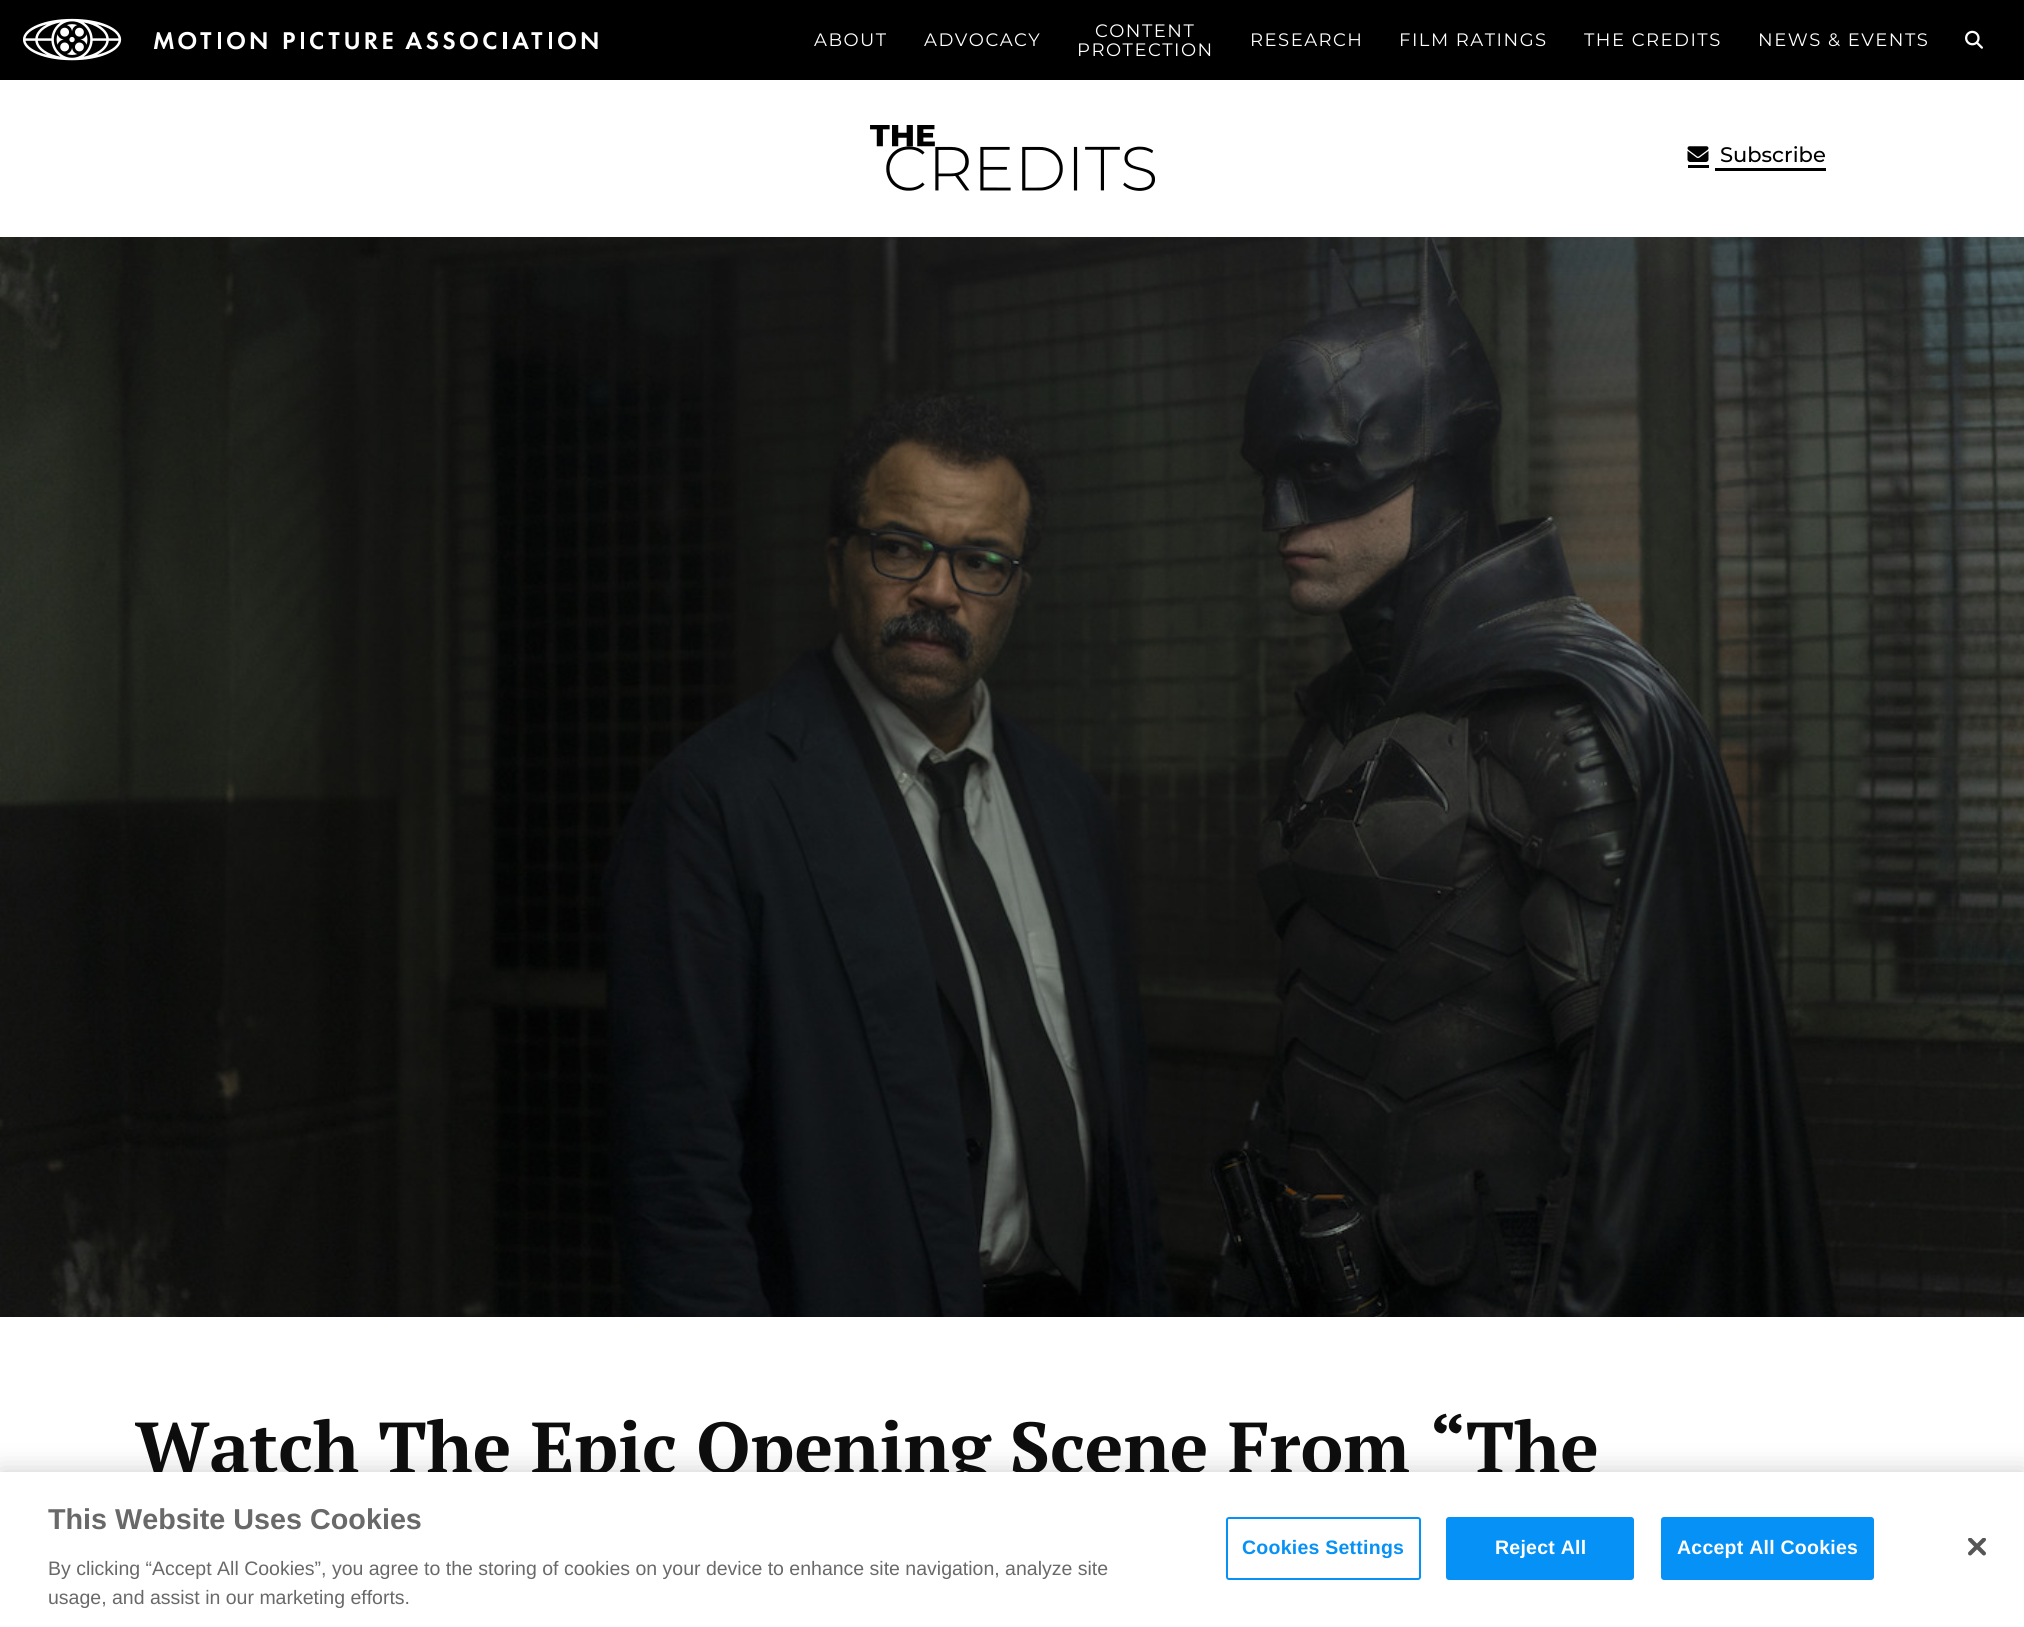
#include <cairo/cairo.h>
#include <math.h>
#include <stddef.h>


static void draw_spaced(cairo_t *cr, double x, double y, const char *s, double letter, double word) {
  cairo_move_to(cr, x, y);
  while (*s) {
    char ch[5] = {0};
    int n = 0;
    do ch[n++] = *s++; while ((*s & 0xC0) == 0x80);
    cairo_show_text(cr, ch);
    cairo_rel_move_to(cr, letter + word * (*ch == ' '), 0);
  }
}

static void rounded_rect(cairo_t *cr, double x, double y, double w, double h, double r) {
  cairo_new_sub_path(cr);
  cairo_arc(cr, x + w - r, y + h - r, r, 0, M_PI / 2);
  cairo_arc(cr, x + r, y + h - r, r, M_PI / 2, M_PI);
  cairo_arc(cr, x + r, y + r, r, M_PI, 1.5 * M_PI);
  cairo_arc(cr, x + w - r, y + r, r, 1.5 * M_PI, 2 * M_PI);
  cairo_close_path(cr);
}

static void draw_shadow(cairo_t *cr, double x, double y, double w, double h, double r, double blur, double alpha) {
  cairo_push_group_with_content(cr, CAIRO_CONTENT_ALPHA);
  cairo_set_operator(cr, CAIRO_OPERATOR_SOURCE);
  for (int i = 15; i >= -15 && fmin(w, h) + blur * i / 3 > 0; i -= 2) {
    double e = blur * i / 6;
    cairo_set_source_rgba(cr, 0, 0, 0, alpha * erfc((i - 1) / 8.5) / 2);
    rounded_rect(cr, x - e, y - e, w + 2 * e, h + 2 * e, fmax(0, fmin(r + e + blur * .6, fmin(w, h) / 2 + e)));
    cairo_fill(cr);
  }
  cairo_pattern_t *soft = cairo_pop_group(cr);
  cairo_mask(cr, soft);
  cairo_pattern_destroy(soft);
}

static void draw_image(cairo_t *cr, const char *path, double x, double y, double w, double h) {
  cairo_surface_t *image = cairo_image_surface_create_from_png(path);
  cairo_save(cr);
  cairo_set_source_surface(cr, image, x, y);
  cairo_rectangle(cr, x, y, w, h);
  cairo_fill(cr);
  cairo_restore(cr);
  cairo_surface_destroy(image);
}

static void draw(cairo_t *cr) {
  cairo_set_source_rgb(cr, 1, 1, 1);
  cairo_paint(cr);
  cairo_set_source_rgb(cr, 0, 0, 0);
  cairo_rectangle(cr, 0, 0, 2024, 80);
  cairo_fill(cr);
  draw_image(cr, "images/1.png", 23, 18, 575, 43);
  draw_image(cr, "images/2.png", 1965, 30, 18, 19);
  draw_image(cr, "images/3.png", 870, 125, 285, 66);
  cairo_rectangle(cr, 1688, 165, 21, 3);
  cairo_fill(cr);
  cairo_rectangle(cr, 1715, 168, 111, 3);
  cairo_fill(cr);
  draw_image(cr, "images/4.png", 1687, 146, 22, 16);
  draw_image(cr, "images/5.png", 0, 237, 2024, 1080);
  cairo_set_source_rgb(cr, 0, 0, 0);
  draw_shadow(cr, 0, 1472, 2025, 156, 0, 13.5, 0.2);
  cairo_select_font_face(cr, "Montserrat", CAIRO_FONT_SLANT_NORMAL, CAIRO_FONT_WEIGHT_NORMAL);
  cairo_set_font_size(cr, 18);
  cairo_set_source_rgb(cr, 1, 1, 1);
  draw_spaced(cr, 814, 46, "ABOUT", 1.5, 0);
  draw_spaced(cr, 924, 46, "ADVOCACY", 1.5, 0);
  draw_spaced(cr, 1095, 37, "CONTENT", 1.5, 0);
  draw_spaced(cr, 1077, 56, "PROTECTION", 1.5, 0);
  draw_spaced(cr, 1250, 46, "RESEARCH", 1.5, 0);
  draw_spaced(cr, 1399, 46, "FILM RATINGS", 1.5, 0);
  draw_spaced(cr, 1584, 46, "THE CREDITS", 1.5, 0);
  draw_spaced(cr, 1758, 46, "NEWS & EVENTS", 1.5, 0);
  cairo_select_font_face(cr, "Montserrat Medium", CAIRO_FONT_SLANT_NORMAL, CAIRO_FONT_WEIGHT_NORMAL);
  cairo_set_font_size(cr, 21);
  cairo_set_source_rgb(cr, 0, 0, 0);
  cairo_move_to(cr, 1720, 162);
  cairo_show_text(cr, "Subscribe");
  cairo_select_font_face(cr, "PT Serif", CAIRO_FONT_SLANT_NORMAL, CAIRO_FONT_WEIGHT_BOLD);
  cairo_set_font_size(cr, 72);
  cairo_set_source_rgb(cr, 13 / 255.0, 13 / 255.0, 14 / 255.0);
  cairo_move_to(cr, 135, 1473);
  cairo_show_text(cr, "Watch The Epic Opening Scene From “The");
  cairo_set_source_rgb(cr, 1, 1, 1);
  cairo_rectangle(cr, 0, 1472, 2024, 155);
  cairo_fill(cr);
  cairo_select_font_face(cr, "Liberation Sans", CAIRO_FONT_SLANT_NORMAL, CAIRO_FONT_WEIGHT_BOLD);
  cairo_set_font_size(cr, 28.75);
  cairo_set_source_rgb(cr, 105 / 255.0, 105 / 255.0, 105 / 255.0);
  cairo_move_to(cr, 48, 1529);
  cairo_show_text(cr, "This Website Uses Cookies");
  cairo_select_font_face(cr, "Liberation Sans", CAIRO_FONT_SLANT_NORMAL, CAIRO_FONT_WEIGHT_NORMAL);
  cairo_set_font_size(cr, 19.5);
  cairo_move_to(cr, 48, 1575);
  cairo_show_text(cr, "By clicking “Accept All Cookies”, you agree to the storing of cookies on your device to enhance site navigation, analyze site");
  cairo_move_to(cr, 48, 1604);
  cairo_show_text(cr, "usage, and assist in our marketing efforts.");
  rounded_rect(cr, 1227, 1518, 193, 61, 2);
  cairo_set_source_rgb(cr, 5 / 255.0, 145 / 255.0, 245 / 255.0);
  cairo_stroke(cr);
  cairo_select_font_face(cr, "Liberation Sans", CAIRO_FONT_SLANT_NORMAL, CAIRO_FONT_WEIGHT_BOLD);
  draw_spaced(cr, 1242, 1554, "Cookies Settings", 0.25, 0);
  rounded_rect(cr, 1447, 1518, 186, 61, 2);
  cairo_fill_preserve(cr);
  cairo_stroke(cr);
  cairo_set_source_rgb(cr, 1, 1, 1);
  draw_spaced(cr, 1495, 1554, "Reject All", 0.25, 0);
  cairo_set_source_rgb(cr, 5 / 255.0, 145 / 255.0, 245 / 255.0);
  rounded_rect(cr, 1662, 1518, 211, 61, 2);
  cairo_fill_preserve(cr);
  cairo_stroke(cr);
  cairo_set_source_rgb(cr, 1, 1, 1);
  draw_spaced(cr, 1677, 1554, "Accept All Cookies", 0.25, 0);
  draw_image(cr, "images/6.png", 1968, 1538, 18, 18);
}

int main(void) {
  cairo_surface_t *surface = cairo_image_surface_create(CAIRO_FORMAT_RGB24, 2024, 1627);
  cairo_t *cr = cairo_create(surface);
  cairo_font_options_t *options = cairo_font_options_create();
  cairo_font_options_set_hint_metrics(options, CAIRO_HINT_METRICS_OFF);
  cairo_font_options_set_hint_style(options, CAIRO_HINT_STYLE_NONE);
  cairo_set_font_options(cr, options);
  cairo_set_miter_limit(cr, 4);
  draw(cr);
  cairo_surface_write_to_png(surface, "out.png");
  cairo_font_options_destroy(options);
  cairo_destroy(cr);
  cairo_surface_destroy(surface);
  return 0;
}
